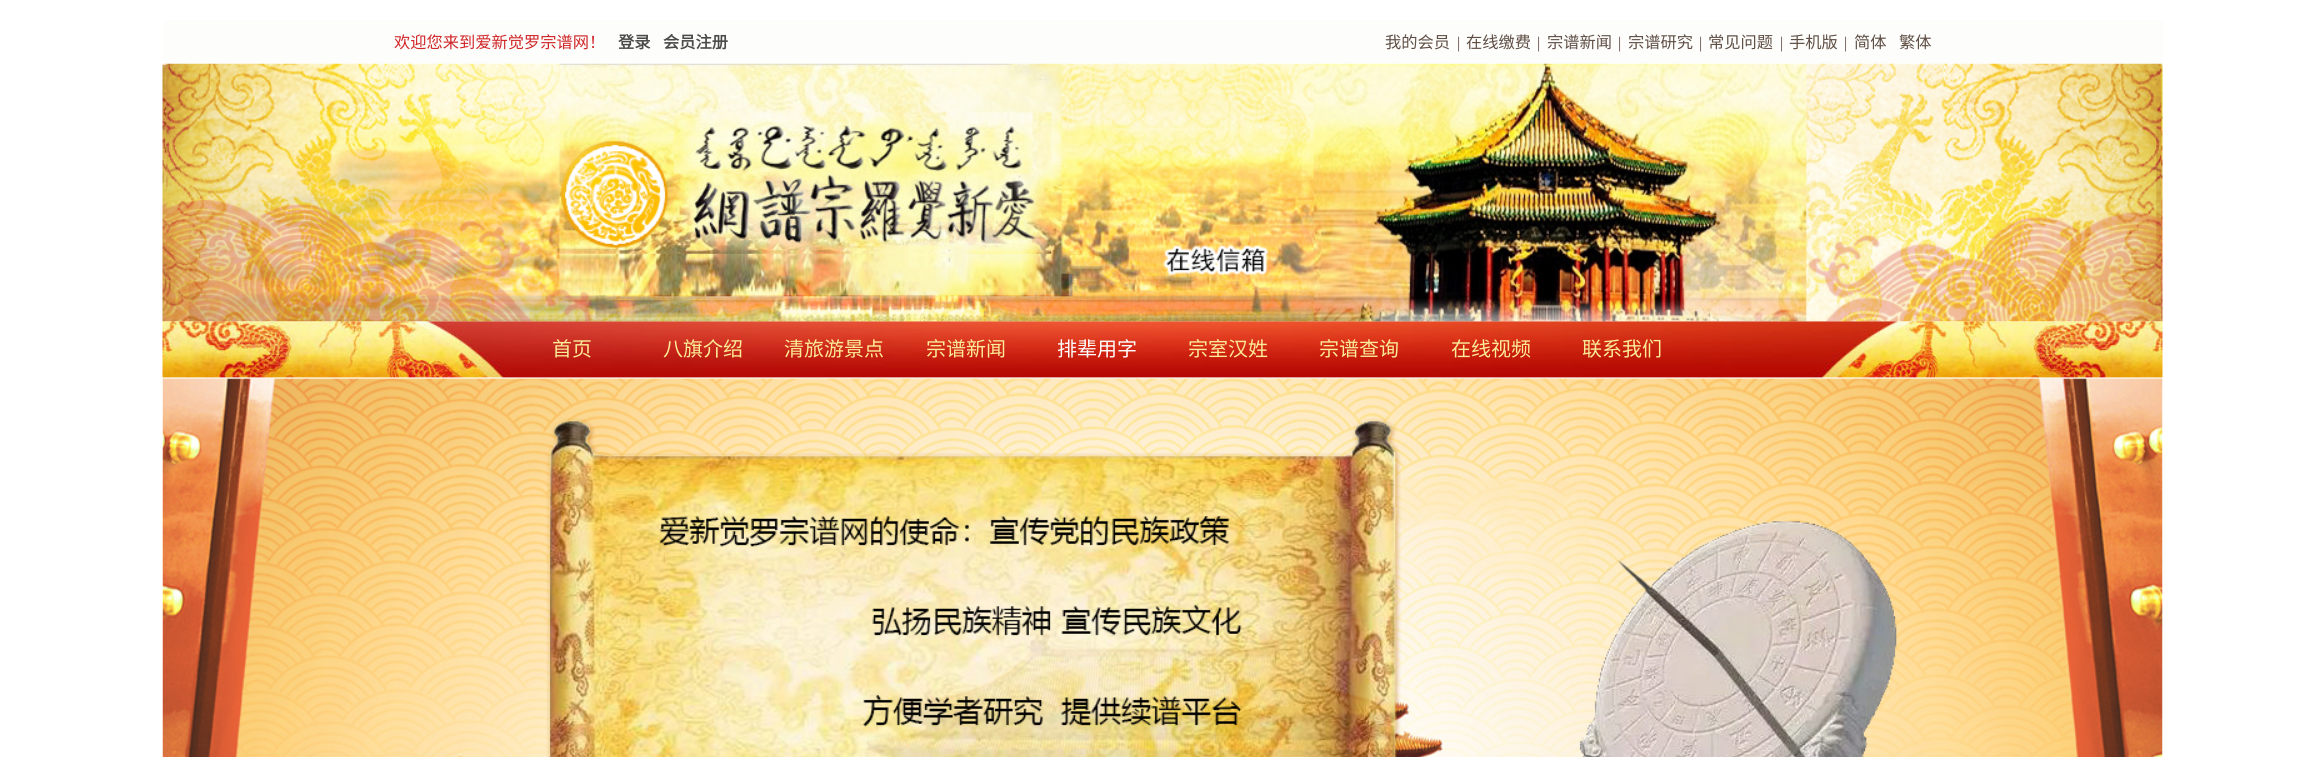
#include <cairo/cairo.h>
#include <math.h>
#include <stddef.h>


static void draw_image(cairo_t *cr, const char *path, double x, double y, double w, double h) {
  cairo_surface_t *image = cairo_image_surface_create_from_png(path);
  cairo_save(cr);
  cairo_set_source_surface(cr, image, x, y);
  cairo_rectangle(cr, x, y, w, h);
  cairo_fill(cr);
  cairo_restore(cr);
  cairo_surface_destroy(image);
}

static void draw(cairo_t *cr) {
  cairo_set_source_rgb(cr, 1, 1, 1);
  cairo_paint(cr);
  cairo_set_source_rgb(cr, 253 / 255.0, 253 / 255.0, 252 / 255.0);
  cairo_rectangle(cr, 163, 20, 2000, 44);
  cairo_fill(cr);
  draw_image(cr, "images/2.png", 162, 321, 2001, 57);
  draw_image(cr, "images/1.png", 162, 63, 2001, 259);
  draw_image(cr, "images/3.png", 162, 377, 2001, 380);
  cairo_select_font_face(cr, "Noto Sans CJK SC", CAIRO_FONT_SLANT_NORMAL, CAIRO_FONT_WEIGHT_NORMAL);
  cairo_set_font_size(cr, 16.25);
  cairo_set_source_rgb(cr, 208 / 255.0, 37 / 255.0, 39 / 255.0);
  cairo_move_to(cr, 394, 48);
  cairo_show_text(cr, "欢迎您来到爱新觉罗宗谱网！");
  cairo_select_font_face(cr, "Noto Sans CJK SC", CAIRO_FONT_SLANT_NORMAL, CAIRO_FONT_WEIGHT_BOLD);
  cairo_set_source_rgb(cr, 74 / 255.0, 74 / 255.0, 74 / 255.0);
  cairo_move_to(cr, 618, 48);
  cairo_show_text(cr, "登录");
  cairo_move_to(cr, 663, 48);
  cairo_show_text(cr, "会员注册");
  cairo_select_font_face(cr, "Noto Sans CJK SC", CAIRO_FONT_SLANT_NORMAL, CAIRO_FONT_WEIGHT_NORMAL);
  cairo_set_source_rgb(cr, 95 / 255.0, 78 / 255.0, 68 / 255.0);
  cairo_move_to(cr, 1385, 48);
  cairo_show_text(cr, "我的会员");
  cairo_select_font_face(cr, "Liberation Serif", CAIRO_FONT_SLANT_NORMAL, CAIRO_FONT_WEIGHT_NORMAL);
  cairo_move_to(cr, 1457, 48);
  cairo_show_text(cr, "|");
  cairo_select_font_face(cr, "Noto Sans CJK SC", CAIRO_FONT_SLANT_NORMAL, CAIRO_FONT_WEIGHT_NORMAL);
  cairo_move_to(cr, 1466, 48);
  cairo_show_text(cr, "在线缴费");
  cairo_select_font_face(cr, "Liberation Serif", CAIRO_FONT_SLANT_NORMAL, CAIRO_FONT_WEIGHT_NORMAL);
  cairo_move_to(cr, 1537, 48);
  cairo_show_text(cr, "|");
  cairo_select_font_face(cr, "Noto Sans CJK SC", CAIRO_FONT_SLANT_NORMAL, CAIRO_FONT_WEIGHT_NORMAL);
  cairo_move_to(cr, 1547, 48);
  cairo_show_text(cr, "宗谱新闻");
  cairo_select_font_face(cr, "Liberation Serif", CAIRO_FONT_SLANT_NORMAL, CAIRO_FONT_WEIGHT_NORMAL);
  cairo_move_to(cr, 1618, 48);
  cairo_show_text(cr, "|");
  cairo_select_font_face(cr, "Noto Sans CJK SC", CAIRO_FONT_SLANT_NORMAL, CAIRO_FONT_WEIGHT_NORMAL);
  cairo_move_to(cr, 1628, 48);
  cairo_show_text(cr, "宗谱研究");
  cairo_select_font_face(cr, "Liberation Serif", CAIRO_FONT_SLANT_NORMAL, CAIRO_FONT_WEIGHT_NORMAL);
  cairo_move_to(cr, 1699, 48);
  cairo_show_text(cr, "|");
  cairo_select_font_face(cr, "Noto Sans CJK SC", CAIRO_FONT_SLANT_NORMAL, CAIRO_FONT_WEIGHT_NORMAL);
  cairo_move_to(cr, 1708, 48);
  cairo_show_text(cr, "常见问题");
  cairo_select_font_face(cr, "Liberation Serif", CAIRO_FONT_SLANT_NORMAL, CAIRO_FONT_WEIGHT_NORMAL);
  cairo_move_to(cr, 1780, 48);
  cairo_show_text(cr, "|");
  cairo_select_font_face(cr, "Noto Sans CJK SC", CAIRO_FONT_SLANT_NORMAL, CAIRO_FONT_WEIGHT_NORMAL);
  cairo_move_to(cr, 1789, 48);
  cairo_show_text(cr, "手机版");
  cairo_select_font_face(cr, "Liberation Serif", CAIRO_FONT_SLANT_NORMAL, CAIRO_FONT_WEIGHT_NORMAL);
  cairo_move_to(cr, 1844, 48);
  cairo_show_text(cr, "|");
  cairo_select_font_face(cr, "Noto Sans CJK SC", CAIRO_FONT_SLANT_NORMAL, CAIRO_FONT_WEIGHT_NORMAL);
  cairo_move_to(cr, 1854, 48);
  cairo_show_text(cr, "简体");
  cairo_move_to(cr, 1899, 48);
  cairo_show_text(cr, "繁体");
  cairo_set_font_size(cr, 20);
  cairo_set_source_rgb(cr, 251 / 255.0, 235 / 255.0, 150 / 255.0);
  cairo_move_to(cr, 552, 356);
  cairo_show_text(cr, "首页");
  cairo_move_to(cr, 663, 356);
  cairo_show_text(cr, "八旗介绍");
  cairo_move_to(cr, 784, 356);
  cairo_show_text(cr, "清旅游景点");
  cairo_move_to(cr, 926, 356);
  cairo_show_text(cr, "宗谱新闻");
  cairo_set_source_rgb(cr, 1, 1, 1);
  cairo_move_to(cr, 1057, 356);
  cairo_show_text(cr, "排辈用字");
  cairo_set_source_rgb(cr, 251 / 255.0, 235 / 255.0, 150 / 255.0);
  cairo_move_to(cr, 1188, 356);
  cairo_show_text(cr, "宗室汉姓");
  cairo_move_to(cr, 1319, 356);
  cairo_show_text(cr, "宗谱查询");
  cairo_move_to(cr, 1451, 356);
  cairo_show_text(cr, "在线视频");
  cairo_move_to(cr, 1582, 356);
  cairo_show_text(cr, "联系我们");
}

int main(void) {
  cairo_surface_t *surface = cairo_image_surface_create(CAIRO_FORMAT_RGB24, 2324, 757);
  cairo_t *cr = cairo_create(surface);
  cairo_font_options_t *options = cairo_font_options_create();
  cairo_font_options_set_hint_metrics(options, CAIRO_HINT_METRICS_OFF);
  cairo_font_options_set_hint_style(options, CAIRO_HINT_STYLE_NONE);
  cairo_set_font_options(cr, options);
  cairo_set_miter_limit(cr, 4);
  draw(cr);
  cairo_surface_write_to_png(surface, "out.png");
  cairo_font_options_destroy(options);
  cairo_destroy(cr);
  cairo_surface_destroy(surface);
  return 0;
}
